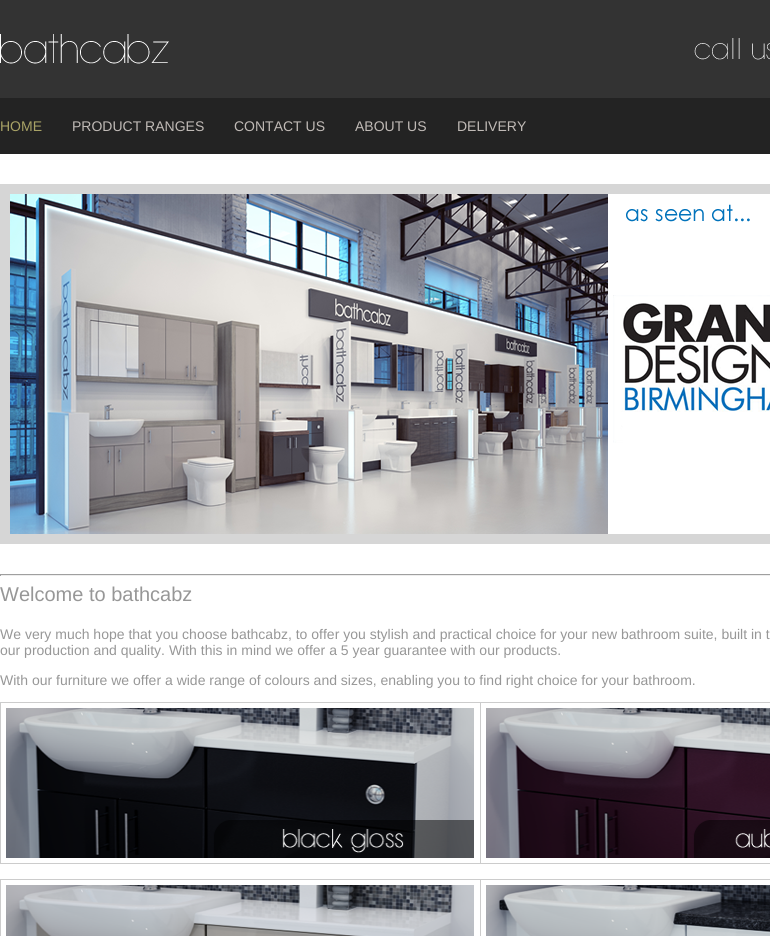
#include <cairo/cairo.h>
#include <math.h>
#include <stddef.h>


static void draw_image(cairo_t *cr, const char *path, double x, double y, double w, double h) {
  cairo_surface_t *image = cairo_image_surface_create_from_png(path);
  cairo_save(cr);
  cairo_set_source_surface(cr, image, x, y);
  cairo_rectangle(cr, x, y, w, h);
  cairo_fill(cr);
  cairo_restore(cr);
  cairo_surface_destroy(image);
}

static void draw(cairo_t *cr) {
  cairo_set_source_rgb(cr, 35 / 255.0, 35 / 255.0, 35 / 255.0);
  cairo_paint(cr);
  cairo_set_source_rgb(cr, 51 / 255.0, 51 / 255.0, 51 / 255.0);
  cairo_rectangle(cr, 0, 0, 770, 98);
  cairo_fill(cr);
  draw_image(cr, "images/1.png", 0, 34, 169, 30);
  draw_image(cr, "images/2.png", 694, 38, 76, 22);
  cairo_set_source_rgb(cr, 1, 1, 1);
  cairo_rectangle(cr, 0, 154, 770, 782);
  cairo_fill(cr);
  cairo_rectangle(cr, 5, 189, 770, 350);
  cairo_set_source_rgb(cr, 214 / 255.0, 214 / 255.0, 214 / 255.0);
  cairo_set_line_width(cr, 10);
  cairo_stroke(cr);
  draw_image(cr, "images/3.png", 10, 194, 760, 340);
  cairo_set_source_rgb(cr, 159 / 255.0, 159 / 255.0, 159 / 255.0);
  cairo_rectangle(cr, 0, 574, 770, 1);
  cairo_fill(cr);
  cairo_set_source_rgb(cr, 238 / 255.0, 238 / 255.0, 238 / 255.0);
  cairo_rectangle(cr, 0, 575, 770, 1);
  cairo_fill(cr);
  cairo_set_source_rgb(cr, 159 / 255.0, 159 / 255.0, 159 / 255.0);
  cairo_rectangle(cr, 0, 574, 1, 2);
  cairo_fill(cr);
  cairo_set_source_rgb(cr, 204 / 255.0, 204 / 255.0, 204 / 255.0);
  cairo_rectangle(cr, 0, 702, 770, 1);
  cairo_fill(cr);
  cairo_rectangle(cr, 0, 863, 770, 1);
  cairo_fill(cr);
  cairo_rectangle(cr, 0, 702, 1, 162);
  cairo_fill(cr);
  draw_image(cr, "images/4.png", 6, 708, 468, 150);
  cairo_rectangle(cr, 480, 702, 1, 162);
  cairo_fill(cr);
  draw_image(cr, "images/5.png", 486, 708, 284, 150);
  cairo_rectangle(cr, 0, 879, 770, 1);
  cairo_fill(cr);
  cairo_rectangle(cr, 0, 879, 1, 57);
  cairo_fill(cr);
  draw_image(cr, "images/6.png", 6, 885, 468, 51);
  cairo_rectangle(cr, 480, 879, 1, 57);
  cairo_fill(cr);
  draw_image(cr, "images/7.png", 486, 885, 284, 51);
  cairo_select_font_face(cr, "Liberation Sans", CAIRO_FONT_SLANT_NORMAL, CAIRO_FONT_WEIGHT_NORMAL);
  cairo_set_font_size(cr, 14);
  cairo_set_source_rgb(cr, 168 / 255.0, 162 / 255.0, 102 / 255.0);
  cairo_move_to(cr, 0, 131);
  cairo_show_text(cr, "HOME");
  cairo_set_source_rgb(cr, 192 / 255.0, 186 / 255.0, 182 / 255.0);
  cairo_move_to(cr, 72, 131);
  cairo_show_text(cr, "PRODUCT RANGES");
  cairo_move_to(cr, 234, 131);
  cairo_show_text(cr, "CONTACT US");
  cairo_move_to(cr, 355, 131);
  cairo_show_text(cr, "ABOUT US");
  cairo_move_to(cr, 457, 131);
  cairo_show_text(cr, "DELIVERY");
  cairo_set_font_size(cr, 20);
  cairo_set_source_rgb(cr, 151 / 255.0, 151 / 255.0, 151 / 255.0);
  cairo_move_to(cr, 0, 601);
  cairo_show_text(cr, "Welcome to bathcabz");
  cairo_set_font_size(cr, 14);
  cairo_move_to(cr, 0, 639);
  cairo_show_text(cr, "We very much hope that you choose bathcabz, to offer you stylish and practical choice for your new bathroom suite, built in t");
  cairo_move_to(cr, 0, 655);
  cairo_show_text(cr, "our production and quality. With this in mind we offer a 5 year guarantee with our products.");
  cairo_move_to(cr, 0, 685);
  cairo_show_text(cr, "With our furniture we offer a wide range of colours and sizes, enabling you to find right choice for your bathroom.");
}

int main(void) {
  cairo_surface_t *surface = cairo_image_surface_create(CAIRO_FORMAT_RGB24, 770, 936);
  cairo_t *cr = cairo_create(surface);
  cairo_font_options_t *options = cairo_font_options_create();
  cairo_font_options_set_hint_metrics(options, CAIRO_HINT_METRICS_OFF);
  cairo_font_options_set_hint_style(options, CAIRO_HINT_STYLE_NONE);
  cairo_set_font_options(cr, options);
  cairo_set_miter_limit(cr, 4);
  draw(cr);
  cairo_surface_write_to_png(surface, "out.png");
  cairo_font_options_destroy(options);
  cairo_destroy(cr);
  cairo_surface_destroy(surface);
  return 0;
}
